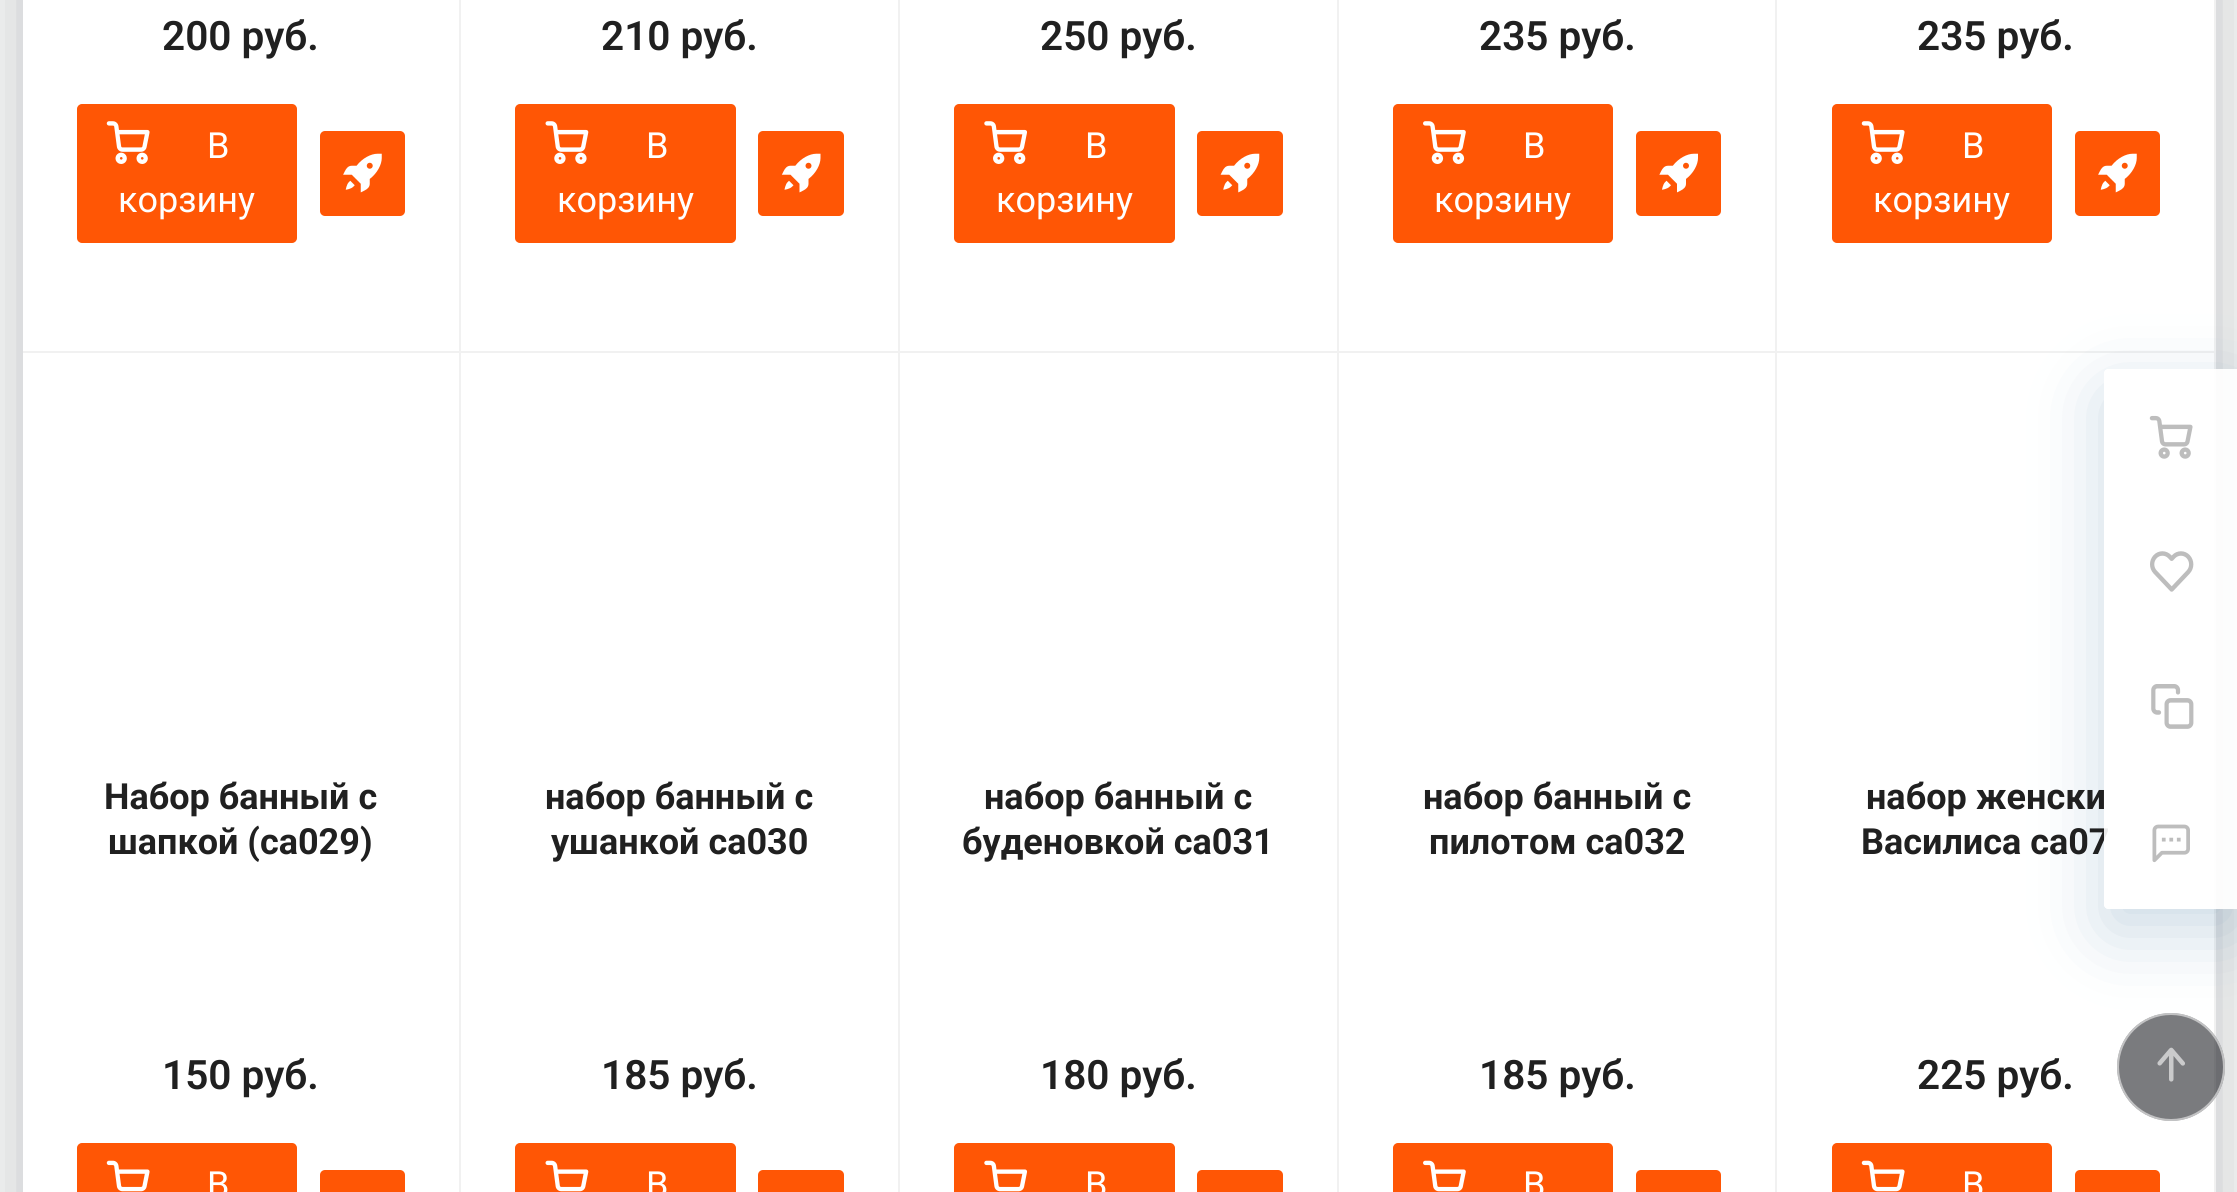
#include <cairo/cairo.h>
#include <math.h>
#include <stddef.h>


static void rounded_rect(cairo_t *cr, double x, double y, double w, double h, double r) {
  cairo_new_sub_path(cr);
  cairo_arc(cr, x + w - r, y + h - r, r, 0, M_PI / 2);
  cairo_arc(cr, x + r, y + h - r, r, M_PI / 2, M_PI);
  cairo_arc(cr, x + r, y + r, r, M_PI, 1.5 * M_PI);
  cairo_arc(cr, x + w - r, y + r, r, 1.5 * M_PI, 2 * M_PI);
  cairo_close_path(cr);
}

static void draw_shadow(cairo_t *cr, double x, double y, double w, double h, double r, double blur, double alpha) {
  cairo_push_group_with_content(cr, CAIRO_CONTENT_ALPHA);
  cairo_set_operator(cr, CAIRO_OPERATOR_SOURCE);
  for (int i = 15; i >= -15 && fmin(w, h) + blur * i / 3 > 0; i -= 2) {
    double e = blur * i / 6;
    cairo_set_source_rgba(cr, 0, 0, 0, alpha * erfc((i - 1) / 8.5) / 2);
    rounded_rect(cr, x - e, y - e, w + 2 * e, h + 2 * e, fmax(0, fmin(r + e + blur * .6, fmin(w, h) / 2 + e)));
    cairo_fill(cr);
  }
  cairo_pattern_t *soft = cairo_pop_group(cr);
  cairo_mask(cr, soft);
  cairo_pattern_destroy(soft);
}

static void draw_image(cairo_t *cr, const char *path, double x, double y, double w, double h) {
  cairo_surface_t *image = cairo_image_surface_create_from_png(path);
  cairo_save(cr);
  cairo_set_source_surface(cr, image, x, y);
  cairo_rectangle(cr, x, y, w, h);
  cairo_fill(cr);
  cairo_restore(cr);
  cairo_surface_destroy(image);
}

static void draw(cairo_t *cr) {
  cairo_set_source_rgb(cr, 241 / 255.0, 241 / 255.0, 241 / 255.0);
  cairo_paint(cr);
  cairo_set_source_rgb(cr, 61 / 255.0, 72 / 255.0, 81 / 255.0);
  draw_shadow(cr, 56, -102, 2127, 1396, 0, 34, 0.75);
  cairo_set_source_rgb(cr, 1, 1, 1);
  cairo_rectangle(cr, 23, 0, 2191, 1192);
  cairo_fill(cr);
  cairo_set_source_rgb(cr, 241 / 255.0, 241 / 255.0, 241 / 255.0);
  cairo_rectangle(cr, 23, 351, 2193, 2);
  cairo_fill(cr);
  cairo_rectangle(cr, 459, 0, 2, 1192);
  cairo_fill(cr);
  cairo_set_source_rgb(cr, 1, 86 / 255.0, 5 / 255.0);
  rounded_rect(cr, 78, 105, 218, 137, 4);
  cairo_fill_preserve(cr);
  cairo_stroke(cr);
  draw_image(cr, "images/1.png", 106, 121, 44, 43);
  rounded_rect(cr, 320, 131, 85, 85, 5);
  cairo_fill(cr);
  draw_image(cr, "images/2.png", 343, 153, 39, 40);
  cairo_set_source_rgb(cr, 241 / 255.0, 241 / 255.0, 241 / 255.0);
  cairo_rectangle(cr, 898, 0, 2, 1192);
  cairo_fill(cr);
  cairo_set_source_rgb(cr, 1, 86 / 255.0, 5 / 255.0);
  rounded_rect(cr, 516, 105, 219, 137, 4);
  cairo_fill_preserve(cr);
  cairo_stroke(cr);
  draw_image(cr, "images/3.png", 545, 121, 44, 43);
  rounded_rect(cr, 758, 131, 86, 85, 5);
  cairo_fill(cr);
  draw_image(cr, "images/4.png", 781, 153, 40, 40);
  cairo_set_source_rgb(cr, 241 / 255.0, 241 / 255.0, 241 / 255.0);
  cairo_rectangle(cr, 1337, 0, 2, 1192);
  cairo_fill(cr);
  cairo_set_source_rgb(cr, 1, 86 / 255.0, 5 / 255.0);
  rounded_rect(cr, 955, 105, 219, 137, 4);
  cairo_fill_preserve(cr);
  cairo_stroke(cr);
  draw_image(cr, "images/5.png", 984, 121, 43, 43);
  rounded_rect(cr, 1197, 131, 86, 85, 5);
  cairo_fill(cr);
  draw_image(cr, "images/6.png", 1220, 153, 40, 40);
  cairo_set_source_rgb(cr, 241 / 255.0, 241 / 255.0, 241 / 255.0);
  cairo_rectangle(cr, 1775, 0, 2, 1192);
  cairo_fill(cr);
  cairo_set_source_rgb(cr, 1, 86 / 255.0, 5 / 255.0);
  rounded_rect(cr, 1394, 105, 218, 137, 4);
  cairo_fill_preserve(cr);
  cairo_stroke(cr);
  draw_image(cr, "images/7.png", 1423, 121, 43, 43);
  rounded_rect(cr, 1636, 131, 85, 85, 5);
  cairo_fill(cr);
  draw_image(cr, "images/8.png", 1659, 153, 39, 40);
  cairo_set_source_rgb(cr, 241 / 255.0, 241 / 255.0, 241 / 255.0);
  cairo_rectangle(cr, 2214, 0, 2, 1192);
  cairo_fill(cr);
  cairo_set_source_rgb(cr, 1, 86 / 255.0, 5 / 255.0);
  rounded_rect(cr, 1833, 105, 218, 137, 4);
  cairo_fill_preserve(cr);
  cairo_stroke(cr);
  draw_image(cr, "images/1.png", 1861, 121, 44, 43);
  rounded_rect(cr, 2075, 131, 85, 85, 5);
  cairo_fill(cr);
  draw_image(cr, "images/2.png", 2098, 153, 39, 40);
  rounded_rect(cr, 78, 1144, 218, 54, 4);
  cairo_fill_preserve(cr);
  cairo_stroke(cr);
  draw_image(cr, "images/9.png", 106, 1160, 44, 32);
  rounded_rect(cr, 320, 1170, 85, 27, 5);
  cairo_fill(cr);
  rounded_rect(cr, 516, 1144, 219, 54, 4);
  cairo_fill_preserve(cr);
  cairo_stroke(cr);
  draw_image(cr, "images/10.png", 545, 1160, 44, 32);
  rounded_rect(cr, 758, 1170, 86, 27, 5);
  cairo_fill(cr);
  rounded_rect(cr, 955, 1144, 219, 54, 4);
  cairo_fill_preserve(cr);
  cairo_stroke(cr);
  draw_image(cr, "images/11.png", 984, 1160, 44, 32);
  rounded_rect(cr, 1197, 1170, 86, 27, 5);
  cairo_fill(cr);
  rounded_rect(cr, 1394, 1144, 218, 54, 4);
  cairo_fill_preserve(cr);
  cairo_stroke(cr);
  draw_image(cr, "images/12.png", 1423, 1160, 43, 32);
  rounded_rect(cr, 1636, 1170, 85, 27, 5);
  cairo_fill(cr);
  rounded_rect(cr, 1833, 1144, 218, 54, 4);
  cairo_fill_preserve(cr);
  cairo_stroke(cr);
  draw_image(cr, "images/9.png", 1861, 1160, 44, 32);
  rounded_rect(cr, 2075, 1170, 85, 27, 5);
  cairo_fill(cr);
  cairo_set_source_rgba(cr, 34 / 255.0, 36 / 255.0, 40 / 255.0, 0.6);
  cairo_arc(cr, 2171, 1067, 54, 0, 2 * M_PI);
  cairo_fill(cr);
  cairo_arc(cr, 2171, 1067, 53, 0, 2 * M_PI);
  cairo_set_source_rgba(cr, 241 / 255.0, 241 / 255.0, 241 / 255.0, 0.6);
  cairo_stroke(cr);
  draw_image(cr, "images/13.png", 2157, 1047, 28, 35);
  cairo_save(cr);
  cairo_set_fill_rule(cr, CAIRO_FILL_RULE_EVEN_ODD);
  cairo_new_path(cr);
  cairo_move_to(cr, 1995, 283);
  cairo_line_to(cr, 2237, 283);
  cairo_line_to(cr, 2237, 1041);
  cairo_line_to(cr, 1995, 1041);
  cairo_close_path(cr);
  cairo_move_to(cr, 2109, 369);
  cairo_line_to(cr, 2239, 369);
  cairo_line_to(cr, 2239, 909);
  cairo_line_to(cr, 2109, 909);
  cairo_curve_to(cr, 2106, 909, 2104, 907, 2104, 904);
  cairo_line_to(cr, 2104, 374);
  cairo_curve_to(cr, 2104, 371, 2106, 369, 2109, 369);
  cairo_close_path(cr);
  cairo_clip(cr);
  cairo_set_source_rgb(cr, 84 / 255.0, 133 / 255.0, 169 / 255.0);
  draw_shadow(cr, 2104, 392, 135, 540, 5, 36, 0.3);
  cairo_restore(cr);
  cairo_select_font_face(cr, "Roboto SemiBold", CAIRO_FONT_SLANT_NORMAL, CAIRO_FONT_WEIGHT_NORMAL);
  cairo_set_font_size(cr, 40.5);
  cairo_set_source_rgb(cr, 32 / 255.0, 32 / 255.0, 32 / 255.0);
  cairo_move_to(cr, 162, 50);
  cairo_show_text(cr, "200 руб.");
  cairo_select_font_face(cr, "Roboto", CAIRO_FONT_SLANT_NORMAL, CAIRO_FONT_WEIGHT_NORMAL);
  cairo_set_font_size(cr, 36);
  cairo_set_source_rgb(cr, 1, 1, 1);
  cairo_move_to(cr, 207, 158);
  cairo_show_text(cr, "В");
  cairo_move_to(cr, 118, 212);
  cairo_show_text(cr, "корзину");
  cairo_select_font_face(cr, "Roboto SemiBold", CAIRO_FONT_SLANT_NORMAL, CAIRO_FONT_WEIGHT_NORMAL);
  cairo_set_font_size(cr, 40.5);
  cairo_set_source_rgb(cr, 32 / 255.0, 32 / 255.0, 32 / 255.0);
  cairo_move_to(cr, 601, 50);
  cairo_show_text(cr, "210 руб.");
  cairo_select_font_face(cr, "Roboto", CAIRO_FONT_SLANT_NORMAL, CAIRO_FONT_WEIGHT_NORMAL);
  cairo_set_font_size(cr, 36);
  cairo_set_source_rgb(cr, 1, 1, 1);
  cairo_move_to(cr, 646, 158);
  cairo_show_text(cr, "В");
  cairo_move_to(cr, 557, 212);
  cairo_show_text(cr, "корзину");
  cairo_select_font_face(cr, "Roboto SemiBold", CAIRO_FONT_SLANT_NORMAL, CAIRO_FONT_WEIGHT_NORMAL);
  cairo_set_font_size(cr, 40.5);
  cairo_set_source_rgb(cr, 32 / 255.0, 32 / 255.0, 32 / 255.0);
  cairo_move_to(cr, 1040, 50);
  cairo_show_text(cr, "250 руб.");
  cairo_select_font_face(cr, "Roboto", CAIRO_FONT_SLANT_NORMAL, CAIRO_FONT_WEIGHT_NORMAL);
  cairo_set_font_size(cr, 36);
  cairo_set_source_rgb(cr, 1, 1, 1);
  cairo_move_to(cr, 1085, 158);
  cairo_show_text(cr, "В");
  cairo_move_to(cr, 996, 212);
  cairo_show_text(cr, "корзину");
  cairo_select_font_face(cr, "Roboto SemiBold", CAIRO_FONT_SLANT_NORMAL, CAIRO_FONT_WEIGHT_NORMAL);
  cairo_set_font_size(cr, 40.5);
  cairo_set_source_rgb(cr, 32 / 255.0, 32 / 255.0, 32 / 255.0);
  cairo_move_to(cr, 1479, 50);
  cairo_show_text(cr, "235 руб.");
  cairo_select_font_face(cr, "Roboto", CAIRO_FONT_SLANT_NORMAL, CAIRO_FONT_WEIGHT_NORMAL);
  cairo_set_font_size(cr, 36);
  cairo_set_source_rgb(cr, 1, 1, 1);
  cairo_move_to(cr, 1523, 158);
  cairo_show_text(cr, "В");
  cairo_move_to(cr, 1434, 212);
  cairo_show_text(cr, "корзину");
  cairo_select_font_face(cr, "Roboto SemiBold", CAIRO_FONT_SLANT_NORMAL, CAIRO_FONT_WEIGHT_NORMAL);
  cairo_set_font_size(cr, 40.5);
  cairo_set_source_rgb(cr, 32 / 255.0, 32 / 255.0, 32 / 255.0);
  cairo_move_to(cr, 1917, 50);
  cairo_show_text(cr, "235 руб.");
  cairo_select_font_face(cr, "Roboto", CAIRO_FONT_SLANT_NORMAL, CAIRO_FONT_WEIGHT_NORMAL);
  cairo_set_font_size(cr, 36);
  cairo_set_source_rgb(cr, 1, 1, 1);
  cairo_move_to(cr, 1962, 158);
  cairo_show_text(cr, "В");
  cairo_move_to(cr, 1873, 212);
  cairo_show_text(cr, "корзину");
  cairo_select_font_face(cr, "Roboto", CAIRO_FONT_SLANT_NORMAL, CAIRO_FONT_WEIGHT_BOLD);
  cairo_set_source_rgb(cr, 32 / 255.0, 32 / 255.0, 32 / 255.0);
  cairo_move_to(cr, 104, 809);
  cairo_show_text(cr, "Набор банный с");
  cairo_move_to(cr, 108, 854);
  cairo_show_text(cr, "шапкой (са029)");
  cairo_select_font_face(cr, "Roboto SemiBold", CAIRO_FONT_SLANT_NORMAL, CAIRO_FONT_WEIGHT_NORMAL);
  cairo_set_font_size(cr, 40.5);
  cairo_move_to(cr, 162, 1089);
  cairo_show_text(cr, "150 руб.");
  cairo_select_font_face(cr, "Roboto", CAIRO_FONT_SLANT_NORMAL, CAIRO_FONT_WEIGHT_NORMAL);
  cairo_set_font_size(cr, 36);
  cairo_set_source_rgb(cr, 1, 1, 1);
  cairo_move_to(cr, 207, 1197);
  cairo_show_text(cr, "В");
  cairo_select_font_face(cr, "Roboto", CAIRO_FONT_SLANT_NORMAL, CAIRO_FONT_WEIGHT_BOLD);
  cairo_set_source_rgb(cr, 32 / 255.0, 32 / 255.0, 32 / 255.0);
  cairo_move_to(cr, 545, 809);
  cairo_show_text(cr, "набор банный с");
  cairo_move_to(cr, 551, 854);
  cairo_show_text(cr, "ушанкой са030");
  cairo_select_font_face(cr, "Roboto SemiBold", CAIRO_FONT_SLANT_NORMAL, CAIRO_FONT_WEIGHT_NORMAL);
  cairo_set_font_size(cr, 40.5);
  cairo_move_to(cr, 601, 1089);
  cairo_show_text(cr, "185 руб.");
  cairo_select_font_face(cr, "Roboto", CAIRO_FONT_SLANT_NORMAL, CAIRO_FONT_WEIGHT_NORMAL);
  cairo_set_font_size(cr, 36);
  cairo_set_source_rgb(cr, 1, 1, 1);
  cairo_move_to(cr, 646, 1197);
  cairo_show_text(cr, "В");
  cairo_select_font_face(cr, "Roboto", CAIRO_FONT_SLANT_NORMAL, CAIRO_FONT_WEIGHT_BOLD);
  cairo_set_source_rgb(cr, 32 / 255.0, 32 / 255.0, 32 / 255.0);
  cairo_move_to(cr, 984, 809);
  cairo_show_text(cr, "набор банный с");
  cairo_move_to(cr, 962, 854);
  cairo_show_text(cr, "буденовкой са031");
  cairo_select_font_face(cr, "Roboto SemiBold", CAIRO_FONT_SLANT_NORMAL, CAIRO_FONT_WEIGHT_NORMAL);
  cairo_set_font_size(cr, 40.5);
  cairo_move_to(cr, 1040, 1089);
  cairo_show_text(cr, "180 руб.");
  cairo_select_font_face(cr, "Roboto", CAIRO_FONT_SLANT_NORMAL, CAIRO_FONT_WEIGHT_NORMAL);
  cairo_set_font_size(cr, 36);
  cairo_set_source_rgb(cr, 1, 1, 1);
  cairo_move_to(cr, 1085, 1197);
  cairo_show_text(cr, "В");
  cairo_select_font_face(cr, "Roboto", CAIRO_FONT_SLANT_NORMAL, CAIRO_FONT_WEIGHT_BOLD);
  cairo_set_source_rgb(cr, 32 / 255.0, 32 / 255.0, 32 / 255.0);
  cairo_move_to(cr, 1423, 809);
  cairo_show_text(cr, "набор банный с");
  cairo_move_to(cr, 1429, 854);
  cairo_show_text(cr, "пилотом са032");
  cairo_select_font_face(cr, "Roboto SemiBold", CAIRO_FONT_SLANT_NORMAL, CAIRO_FONT_WEIGHT_NORMAL);
  cairo_set_font_size(cr, 40.5);
  cairo_move_to(cr, 1479, 1089);
  cairo_show_text(cr, "185 руб.");
  cairo_select_font_face(cr, "Roboto", CAIRO_FONT_SLANT_NORMAL, CAIRO_FONT_WEIGHT_NORMAL);
  cairo_set_font_size(cr, 36);
  cairo_set_source_rgb(cr, 1, 1, 1);
  cairo_move_to(cr, 1523, 1197);
  cairo_show_text(cr, "В");
  cairo_select_font_face(cr, "Roboto", CAIRO_FONT_SLANT_NORMAL, CAIRO_FONT_WEIGHT_BOLD);
  cairo_set_source_rgb(cr, 32 / 255.0, 32 / 255.0, 32 / 255.0);
  cairo_move_to(cr, 1866, 809);
  cairo_show_text(cr, "набор женски");
  cairo_move_to(cr, 1861, 854);
  cairo_show_text(cr, "Василиса са07");
  cairo_select_font_face(cr, "Roboto SemiBold", CAIRO_FONT_SLANT_NORMAL, CAIRO_FONT_WEIGHT_NORMAL);
  cairo_set_font_size(cr, 40.5);
  cairo_move_to(cr, 1917, 1089);
  cairo_show_text(cr, "225 руб.");
  cairo_select_font_face(cr, "Roboto", CAIRO_FONT_SLANT_NORMAL, CAIRO_FONT_WEIGHT_NORMAL);
  cairo_set_font_size(cr, 36);
  cairo_set_source_rgb(cr, 1, 1, 1);
  cairo_move_to(cr, 1962, 1197);
  cairo_show_text(cr, "В");
  cairo_set_source_rgba(cr, 1, 1, 1, 0.9);
  cairo_new_path(cr);
  cairo_move_to(cr, 2109, 369);
  cairo_line_to(cr, 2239, 369);
  cairo_line_to(cr, 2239, 909);
  cairo_line_to(cr, 2109, 909);
  cairo_curve_to(cr, 2106, 909, 2104, 907, 2104, 904);
  cairo_line_to(cr, 2104, 374);
  cairo_curve_to(cr, 2104, 371, 2106, 369, 2109, 369);
  cairo_close_path(cr);
  cairo_fill(cr);
  draw_image(cr, "images/14.png", 2149, 415, 44, 44);
  draw_image(cr, "images/15.png", 2150, 551, 44, 41);
  draw_image(cr, "images/16.png", 2151, 684, 43, 45);
  draw_image(cr, "images/17.png", 2152, 824, 38, 39);
}

int main(void) {
  cairo_surface_t *surface = cairo_image_surface_create(CAIRO_FORMAT_RGB24, 2237, 1192);
  cairo_t *cr = cairo_create(surface);
  cairo_font_options_t *options = cairo_font_options_create();
  cairo_font_options_set_hint_metrics(options, CAIRO_HINT_METRICS_OFF);
  cairo_font_options_set_hint_style(options, CAIRO_HINT_STYLE_NONE);
  cairo_set_font_options(cr, options);
  cairo_set_miter_limit(cr, 4);
  draw(cr);
  cairo_surface_write_to_png(surface, "out.png");
  cairo_font_options_destroy(options);
  cairo_destroy(cr);
  cairo_surface_destroy(surface);
  return 0;
}
